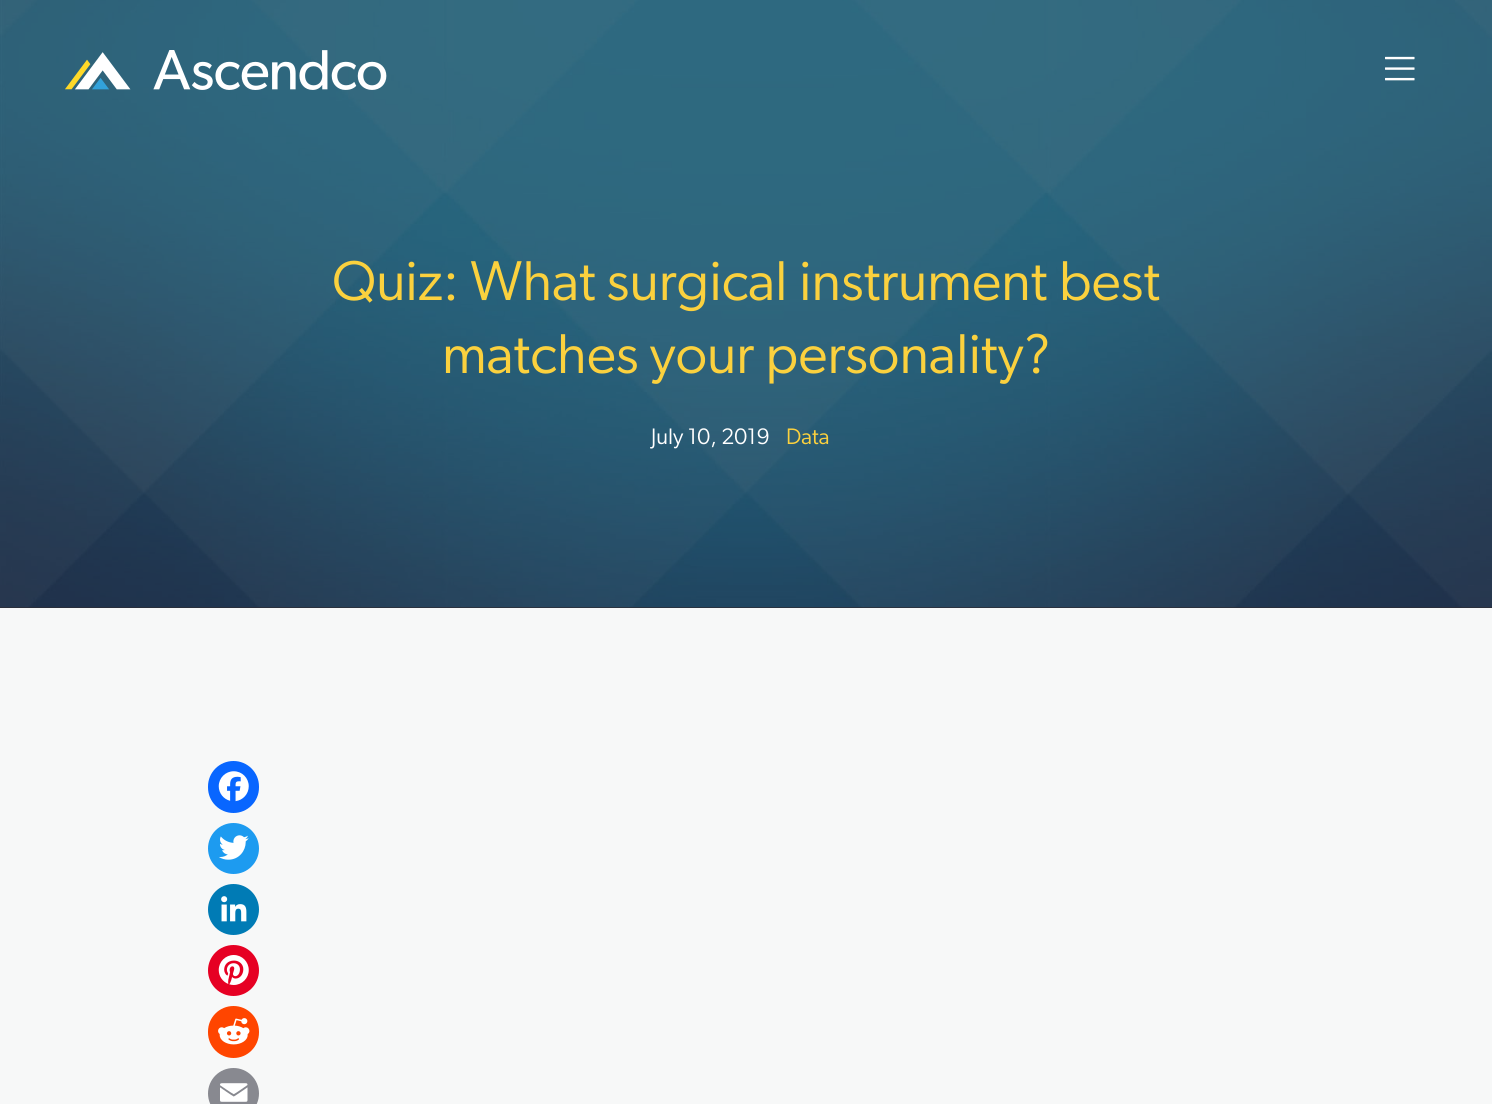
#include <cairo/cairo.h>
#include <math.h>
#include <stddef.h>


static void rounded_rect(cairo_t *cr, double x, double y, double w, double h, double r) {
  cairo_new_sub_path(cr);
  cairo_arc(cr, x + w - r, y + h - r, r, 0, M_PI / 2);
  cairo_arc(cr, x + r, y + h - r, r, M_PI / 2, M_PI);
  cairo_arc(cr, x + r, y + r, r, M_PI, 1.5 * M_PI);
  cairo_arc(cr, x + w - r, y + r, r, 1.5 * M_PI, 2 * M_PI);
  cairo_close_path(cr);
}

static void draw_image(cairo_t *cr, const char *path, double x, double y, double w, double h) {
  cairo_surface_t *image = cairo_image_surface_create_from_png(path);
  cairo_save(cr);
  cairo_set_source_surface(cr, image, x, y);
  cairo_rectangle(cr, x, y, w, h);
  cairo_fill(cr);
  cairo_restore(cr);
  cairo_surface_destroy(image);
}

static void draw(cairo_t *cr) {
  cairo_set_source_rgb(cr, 247 / 255.0, 248 / 255.0, 248 / 255.0);
  cairo_paint(cr);
  cairo_set_source_rgb(cr, 44 / 255.0, 46 / 255.0, 53 / 255.0);
  cairo_rectangle(cr, 0, 0, 1492, 608);
  cairo_fill(cr);
  draw_image(cr, "images/3.png", 0, 0, 1492, 608);
  draw_image(cr, "images/1.png", 65, 50, 322, 40);
  draw_image(cr, "images/2.png", 1385, 56, 30, 25);
  cairo_set_source_rgb(cr, 8 / 255.0, 102 / 255.0, 1);
  rounded_rect(cr, 208, 761, 51, 52, 25.5);
  cairo_fill(cr);
  draw_image(cr, "images/4.png", 218, 771, 31, 31);
  cairo_set_source_rgb(cr, 29 / 255.0, 155 / 255.0, 240 / 255.0);
  cairo_arc(cr, 233.5, 848.5, 25.5, 0, 2 * M_PI);
  cairo_fill(cr);
  draw_image(cr, "images/5.png", 219, 835, 30, 25);
  cairo_set_source_rgb(cr, 0, 123 / 255.0, 181 / 255.0);
  cairo_arc(cr, 233.5, 909.5, 25.5, 0, 2 * M_PI);
  cairo_fill(cr);
  draw_image(cr, "images/6.png", 221, 896, 26, 26);
  cairo_set_source_rgb(cr, 230 / 255.0, 0, 35 / 255.0);
  cairo_arc(cr, 233.5, 970.5, 25.5, 0, 2 * M_PI);
  cairo_fill(cr);
  draw_image(cr, "images/7.png", 218, 955, 31, 30);
  cairo_set_source_rgb(cr, 1, 69 / 255.0, 0);
  rounded_rect(cr, 208, 1006, 51, 52, 25.5);
  cairo_fill(cr);
  draw_image(cr, "images/8.png", 218, 1018, 32, 27);
  cairo_set_source_rgb(cr, 136 / 255.0, 137 / 255.0, 144 / 255.0);
  cairo_arc(cr, 233.5, 1093.5, 25.5, 0, 2 * M_PI);
  cairo_fill(cr);
  draw_image(cr, "images/9.png", 220, 1083, 28, 19);
  cairo_select_font_face(cr, "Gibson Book", CAIRO_FONT_SLANT_NORMAL, CAIRO_FONT_WEIGHT_NORMAL);
  cairo_set_font_size(cr, 56.25);
  cairo_set_source_rgb(cr, 251 / 255.0, 209 / 255.0, 62 / 255.0);
  cairo_move_to(cr, 332, 300);
  cairo_show_text(cr, "Quiz: What surgical instrument best");
  cairo_move_to(cr, 442, 373);
  cairo_show_text(cr, "matches your personality?");
  cairo_set_font_size(cr, 22.5);
  cairo_set_source_rgb(cr, 1, 1, 1);
  cairo_move_to(cr, 651, 444);
  cairo_show_text(cr, "July 10, 2019");
  cairo_set_source_rgb(cr, 251 / 255.0, 209 / 255.0, 62 / 255.0);
  cairo_move_to(cr, 786, 444);
  cairo_show_text(cr, "Data");
}

int main(void) {
  cairo_surface_t *surface = cairo_image_surface_create(CAIRO_FORMAT_RGB24, 1492, 1104);
  cairo_t *cr = cairo_create(surface);
  cairo_font_options_t *options = cairo_font_options_create();
  cairo_font_options_set_hint_metrics(options, CAIRO_HINT_METRICS_OFF);
  cairo_font_options_set_hint_style(options, CAIRO_HINT_STYLE_NONE);
  cairo_set_font_options(cr, options);
  cairo_set_miter_limit(cr, 4);
  draw(cr);
  cairo_surface_write_to_png(surface, "out.png");
  cairo_font_options_destroy(options);
  cairo_destroy(cr);
  cairo_surface_destroy(surface);
  return 0;
}
